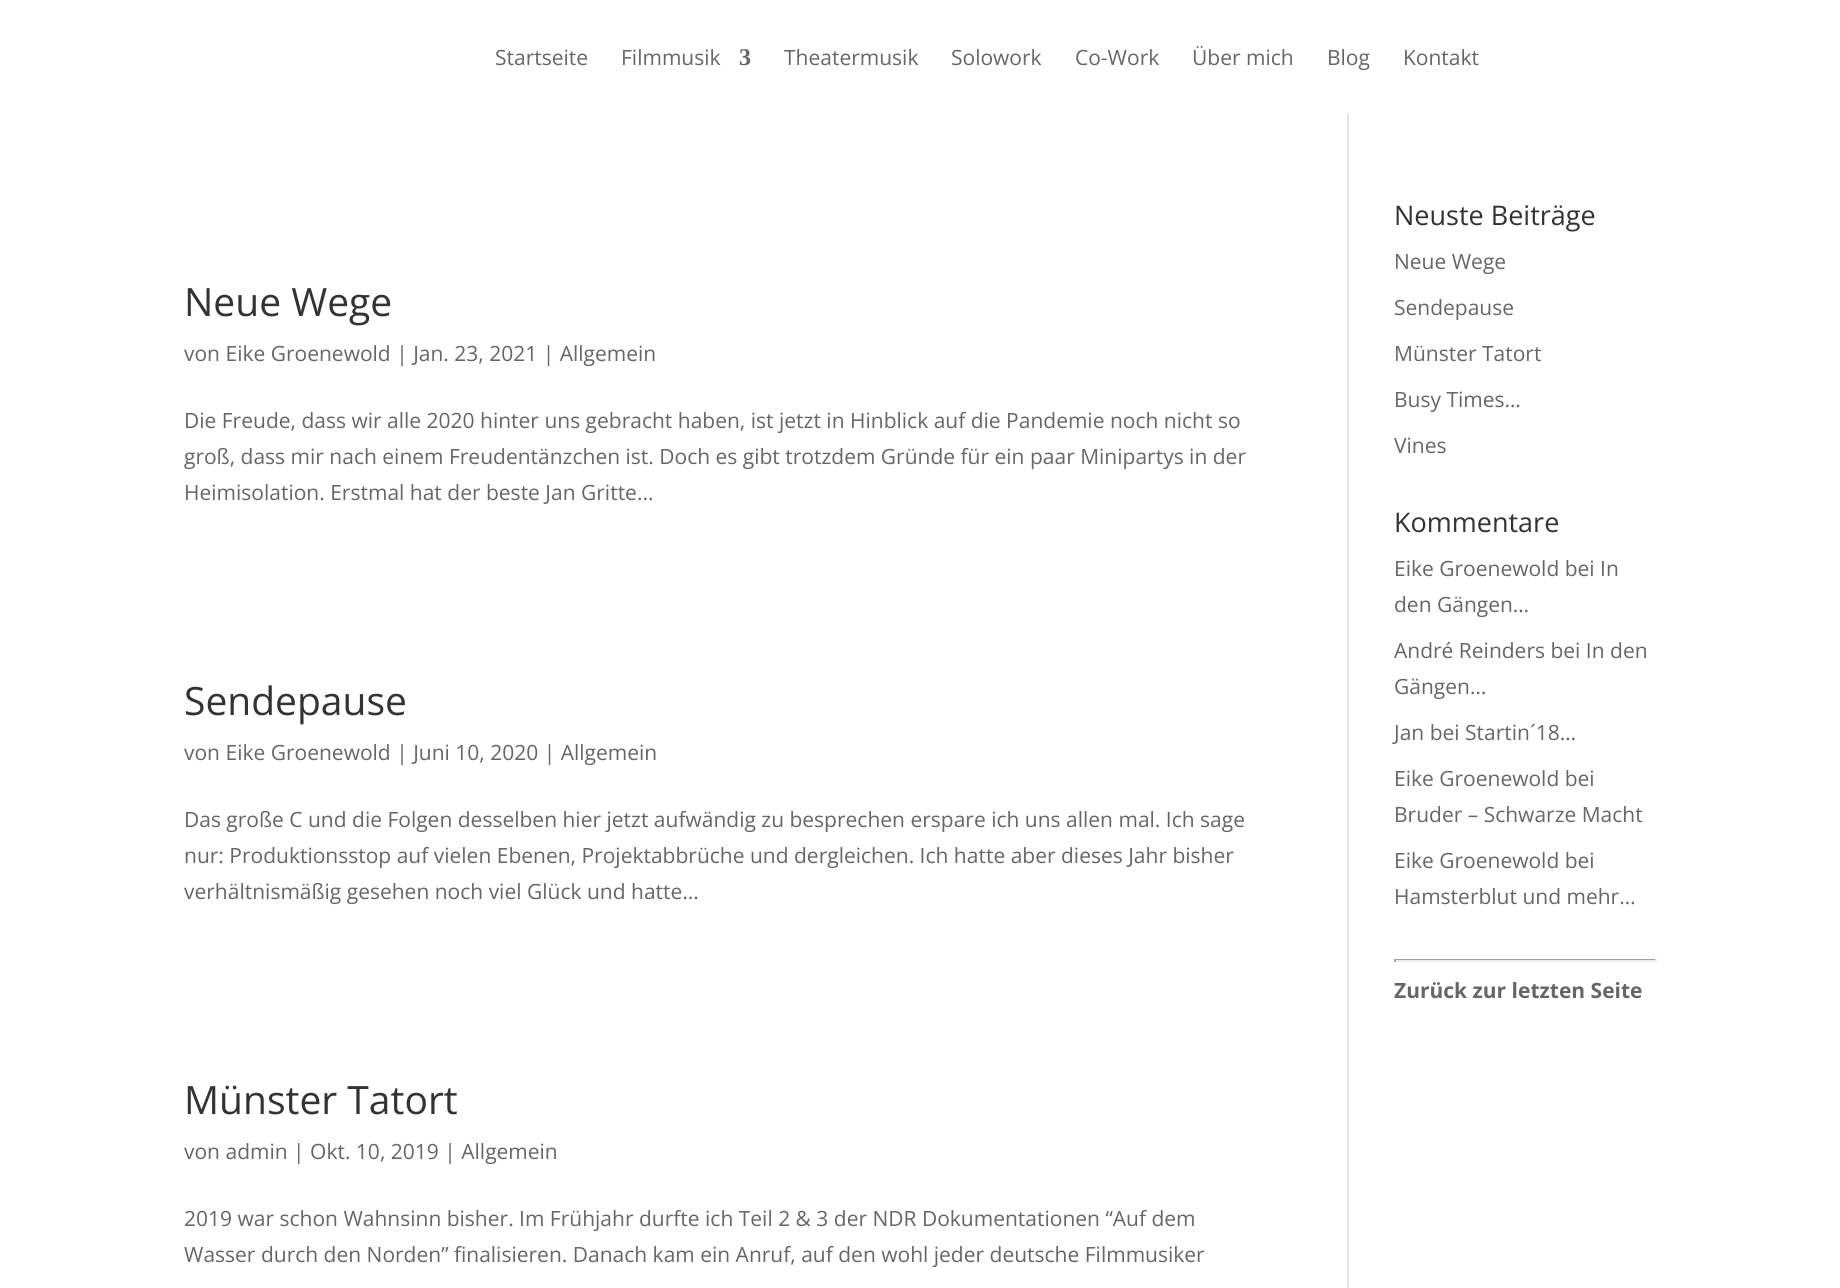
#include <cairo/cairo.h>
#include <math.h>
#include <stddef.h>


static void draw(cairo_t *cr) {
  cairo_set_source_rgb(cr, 1, 1, 1);
  cairo_paint(cr);
  cairo_set_source_rgb(cr, 226 / 255.0, 226 / 255.0, 226 / 255.0);
  cairo_rectangle(cr, 1347, 114, 2, 1174);
  cairo_fill(cr);
  cairo_set_source_rgb(cr, 159 / 255.0, 159 / 255.0, 159 / 255.0);
  cairo_rectangle(cr, 1394, 959, 262, 1);
  cairo_fill(cr);
  cairo_set_source_rgb(cr, 238 / 255.0, 238 / 255.0, 238 / 255.0);
  cairo_rectangle(cr, 1655, 959, 2, 3);
  cairo_fill(cr);
  cairo_rectangle(cr, 1394, 960, 262, 2);
  cairo_fill(cr);
  cairo_set_source_rgb(cr, 159 / 255.0, 159 / 255.0, 159 / 255.0);
  cairo_rectangle(cr, 1394, 959, 2, 3);
  cairo_fill(cr);
  cairo_select_font_face(cr, "Open Sans", CAIRO_FONT_SLANT_NORMAL, CAIRO_FONT_WEIGHT_NORMAL);
  cairo_set_font_size(cr, 21);
  cairo_set_source_rgb(cr, 102 / 255.0, 102 / 255.0, 102 / 255.0);
  cairo_move_to(cr, 495, 65);
  cairo_show_text(cr, "Startseite");
  cairo_move_to(cr, 621, 65);
  cairo_show_text(cr, "Filmmusik");
  cairo_select_font_face(cr, "Liberation Serif", CAIRO_FONT_SLANT_NORMAL, CAIRO_FONT_WEIGHT_BOLD);
  cairo_set_font_size(cr, 24);
  cairo_move_to(cr, 739, 65);
  cairo_show_text(cr, "3");
  cairo_select_font_face(cr, "Open Sans", CAIRO_FONT_SLANT_NORMAL, CAIRO_FONT_WEIGHT_NORMAL);
  cairo_set_font_size(cr, 21);
  cairo_move_to(cr, 784, 65);
  cairo_show_text(cr, "Theatermusik");
  cairo_move_to(cr, 951, 65);
  cairo_show_text(cr, "Solowork");
  cairo_move_to(cr, 1075, 65);
  cairo_show_text(cr, "Co-Work");
  cairo_move_to(cr, 1192, 65);
  cairo_show_text(cr, "Über mich");
  cairo_move_to(cr, 1327, 65);
  cairo_show_text(cr, "Blog");
  cairo_move_to(cr, 1403, 65);
  cairo_show_text(cr, "Kontakt");
  cairo_set_font_size(cr, 39);
  cairo_set_source_rgb(cr, 51 / 255.0, 51 / 255.0, 51 / 255.0);
  cairo_move_to(cr, 184, 316);
  cairo_show_text(cr, "Neue Wege");
  cairo_set_font_size(cr, 21);
  cairo_set_source_rgb(cr, 102 / 255.0, 102 / 255.0, 102 / 255.0);
  cairo_move_to(cr, 184, 361);
  cairo_show_text(cr, "von Eike Groenewold | Jan. 23, 2021 | Allgemein");
  cairo_move_to(cr, 184, 428);
  cairo_show_text(cr, "Die Freude, dass wir alle 2020 hinter uns gebracht haben, ist jetzt in Hinblick auf die Pandemie noch nicht so");
  cairo_move_to(cr, 184, 464);
  cairo_show_text(cr, "groß, dass mir nach einem Freudentänzchen ist. Doch es gibt trotzdem Gründe für ein paar Minipartys in der");
  cairo_move_to(cr, 184, 500);
  cairo_show_text(cr, "Heimisolation. Erstmal hat der beste Jan Gritte...");
  cairo_set_font_size(cr, 39);
  cairo_set_source_rgb(cr, 51 / 255.0, 51 / 255.0, 51 / 255.0);
  cairo_move_to(cr, 184, 715);
  cairo_show_text(cr, "Sendepause");
  cairo_set_font_size(cr, 21);
  cairo_set_source_rgb(cr, 102 / 255.0, 102 / 255.0, 102 / 255.0);
  cairo_move_to(cr, 184, 760);
  cairo_show_text(cr, "von Eike Groenewold | Juni 10, 2020 | Allgemein");
  cairo_move_to(cr, 184, 827);
  cairo_show_text(cr, "Das große C und die Folgen desselben hier jetzt aufwändig zu besprechen erspare ich uns allen mal. Ich sage");
  cairo_move_to(cr, 184, 863);
  cairo_show_text(cr, "nur: Produktionsstop auf vielen Ebenen, Projektabbrüche und dergleichen. Ich hatte aber dieses Jahr bisher");
  cairo_move_to(cr, 184, 899);
  cairo_show_text(cr, "verhältnismäßig gesehen noch viel Glück und hatte...");
  cairo_set_font_size(cr, 39);
  cairo_set_source_rgb(cr, 51 / 255.0, 51 / 255.0, 51 / 255.0);
  cairo_move_to(cr, 184, 1114);
  cairo_show_text(cr, "Münster Tatort");
  cairo_set_font_size(cr, 21);
  cairo_set_source_rgb(cr, 102 / 255.0, 102 / 255.0, 102 / 255.0);
  cairo_move_to(cr, 184, 1159);
  cairo_show_text(cr, "von admin | Okt. 10, 2019 | Allgemein");
  cairo_move_to(cr, 184, 1226);
  cairo_show_text(cr, "2019 war schon Wahnsinn bisher. Im Frühjahr durfte ich Teil 2 & 3 der NDR Dokumentationen “Auf dem");
  cairo_move_to(cr, 184, 1262);
  cairo_show_text(cr, "Wasser durch den Norden” finalisieren. Danach kam ein Anruf, auf den wohl jeder deutsche Filmmusiker");
  cairo_set_font_size(cr, 27);
  cairo_set_source_rgb(cr, 51 / 255.0, 51 / 255.0, 51 / 255.0);
  cairo_move_to(cr, 1394, 225);
  cairo_show_text(cr, "Neuste Beiträge");
  cairo_set_font_size(cr, 21);
  cairo_set_source_rgb(cr, 102 / 255.0, 102 / 255.0, 102 / 255.0);
  cairo_move_to(cr, 1394, 269);
  cairo_show_text(cr, "Neue Wege");
  cairo_move_to(cr, 1394, 315);
  cairo_show_text(cr, "Sendepause");
  cairo_move_to(cr, 1394, 361);
  cairo_show_text(cr, "Münster Tatort");
  cairo_move_to(cr, 1394, 407);
  cairo_show_text(cr, "Busy Times…");
  cairo_move_to(cr, 1394, 453);
  cairo_show_text(cr, "Vines");
  cairo_set_font_size(cr, 27);
  cairo_set_source_rgb(cr, 51 / 255.0, 51 / 255.0, 51 / 255.0);
  cairo_move_to(cr, 1394, 532);
  cairo_show_text(cr, "Kommentare");
  cairo_set_font_size(cr, 21);
  cairo_set_source_rgb(cr, 102 / 255.0, 102 / 255.0, 102 / 255.0);
  cairo_move_to(cr, 1394, 576);
  cairo_show_text(cr, "Eike Groenewold bei In");
  cairo_move_to(cr, 1394, 612);
  cairo_show_text(cr, "den Gängen…");
  cairo_move_to(cr, 1394, 658);
  cairo_show_text(cr, "André Reinders bei In den");
  cairo_move_to(cr, 1394, 694);
  cairo_show_text(cr, "Gängen…");
  cairo_move_to(cr, 1394, 740);
  cairo_show_text(cr, "Jan bei Startin´18…");
  cairo_move_to(cr, 1394, 786);
  cairo_show_text(cr, "Eike Groenewold bei");
  cairo_move_to(cr, 1394, 822);
  cairo_show_text(cr, "Bruder – Schwarze Macht");
  cairo_move_to(cr, 1394, 868);
  cairo_show_text(cr, "Eike Groenewold bei");
  cairo_move_to(cr, 1394, 904);
  cairo_show_text(cr, "Hamsterblut und mehr…");
  cairo_select_font_face(cr, "Open Sans", CAIRO_FONT_SLANT_NORMAL, CAIRO_FONT_WEIGHT_BOLD);
  cairo_move_to(cr, 1394, 998);
  cairo_show_text(cr, "Zurück zur letzten Seite");
}

int main(void) {
  cairo_surface_t *surface = cairo_image_surface_create(CAIRO_FORMAT_RGB24, 1840, 1288);
  cairo_t *cr = cairo_create(surface);
  cairo_font_options_t *options = cairo_font_options_create();
  cairo_font_options_set_hint_metrics(options, CAIRO_HINT_METRICS_OFF);
  cairo_font_options_set_hint_style(options, CAIRO_HINT_STYLE_NONE);
  cairo_set_font_options(cr, options);
  cairo_set_miter_limit(cr, 4);
  draw(cr);
  cairo_surface_write_to_png(surface, "out.png");
  cairo_font_options_destroy(options);
  cairo_destroy(cr);
  cairo_surface_destroy(surface);
  return 0;
}
